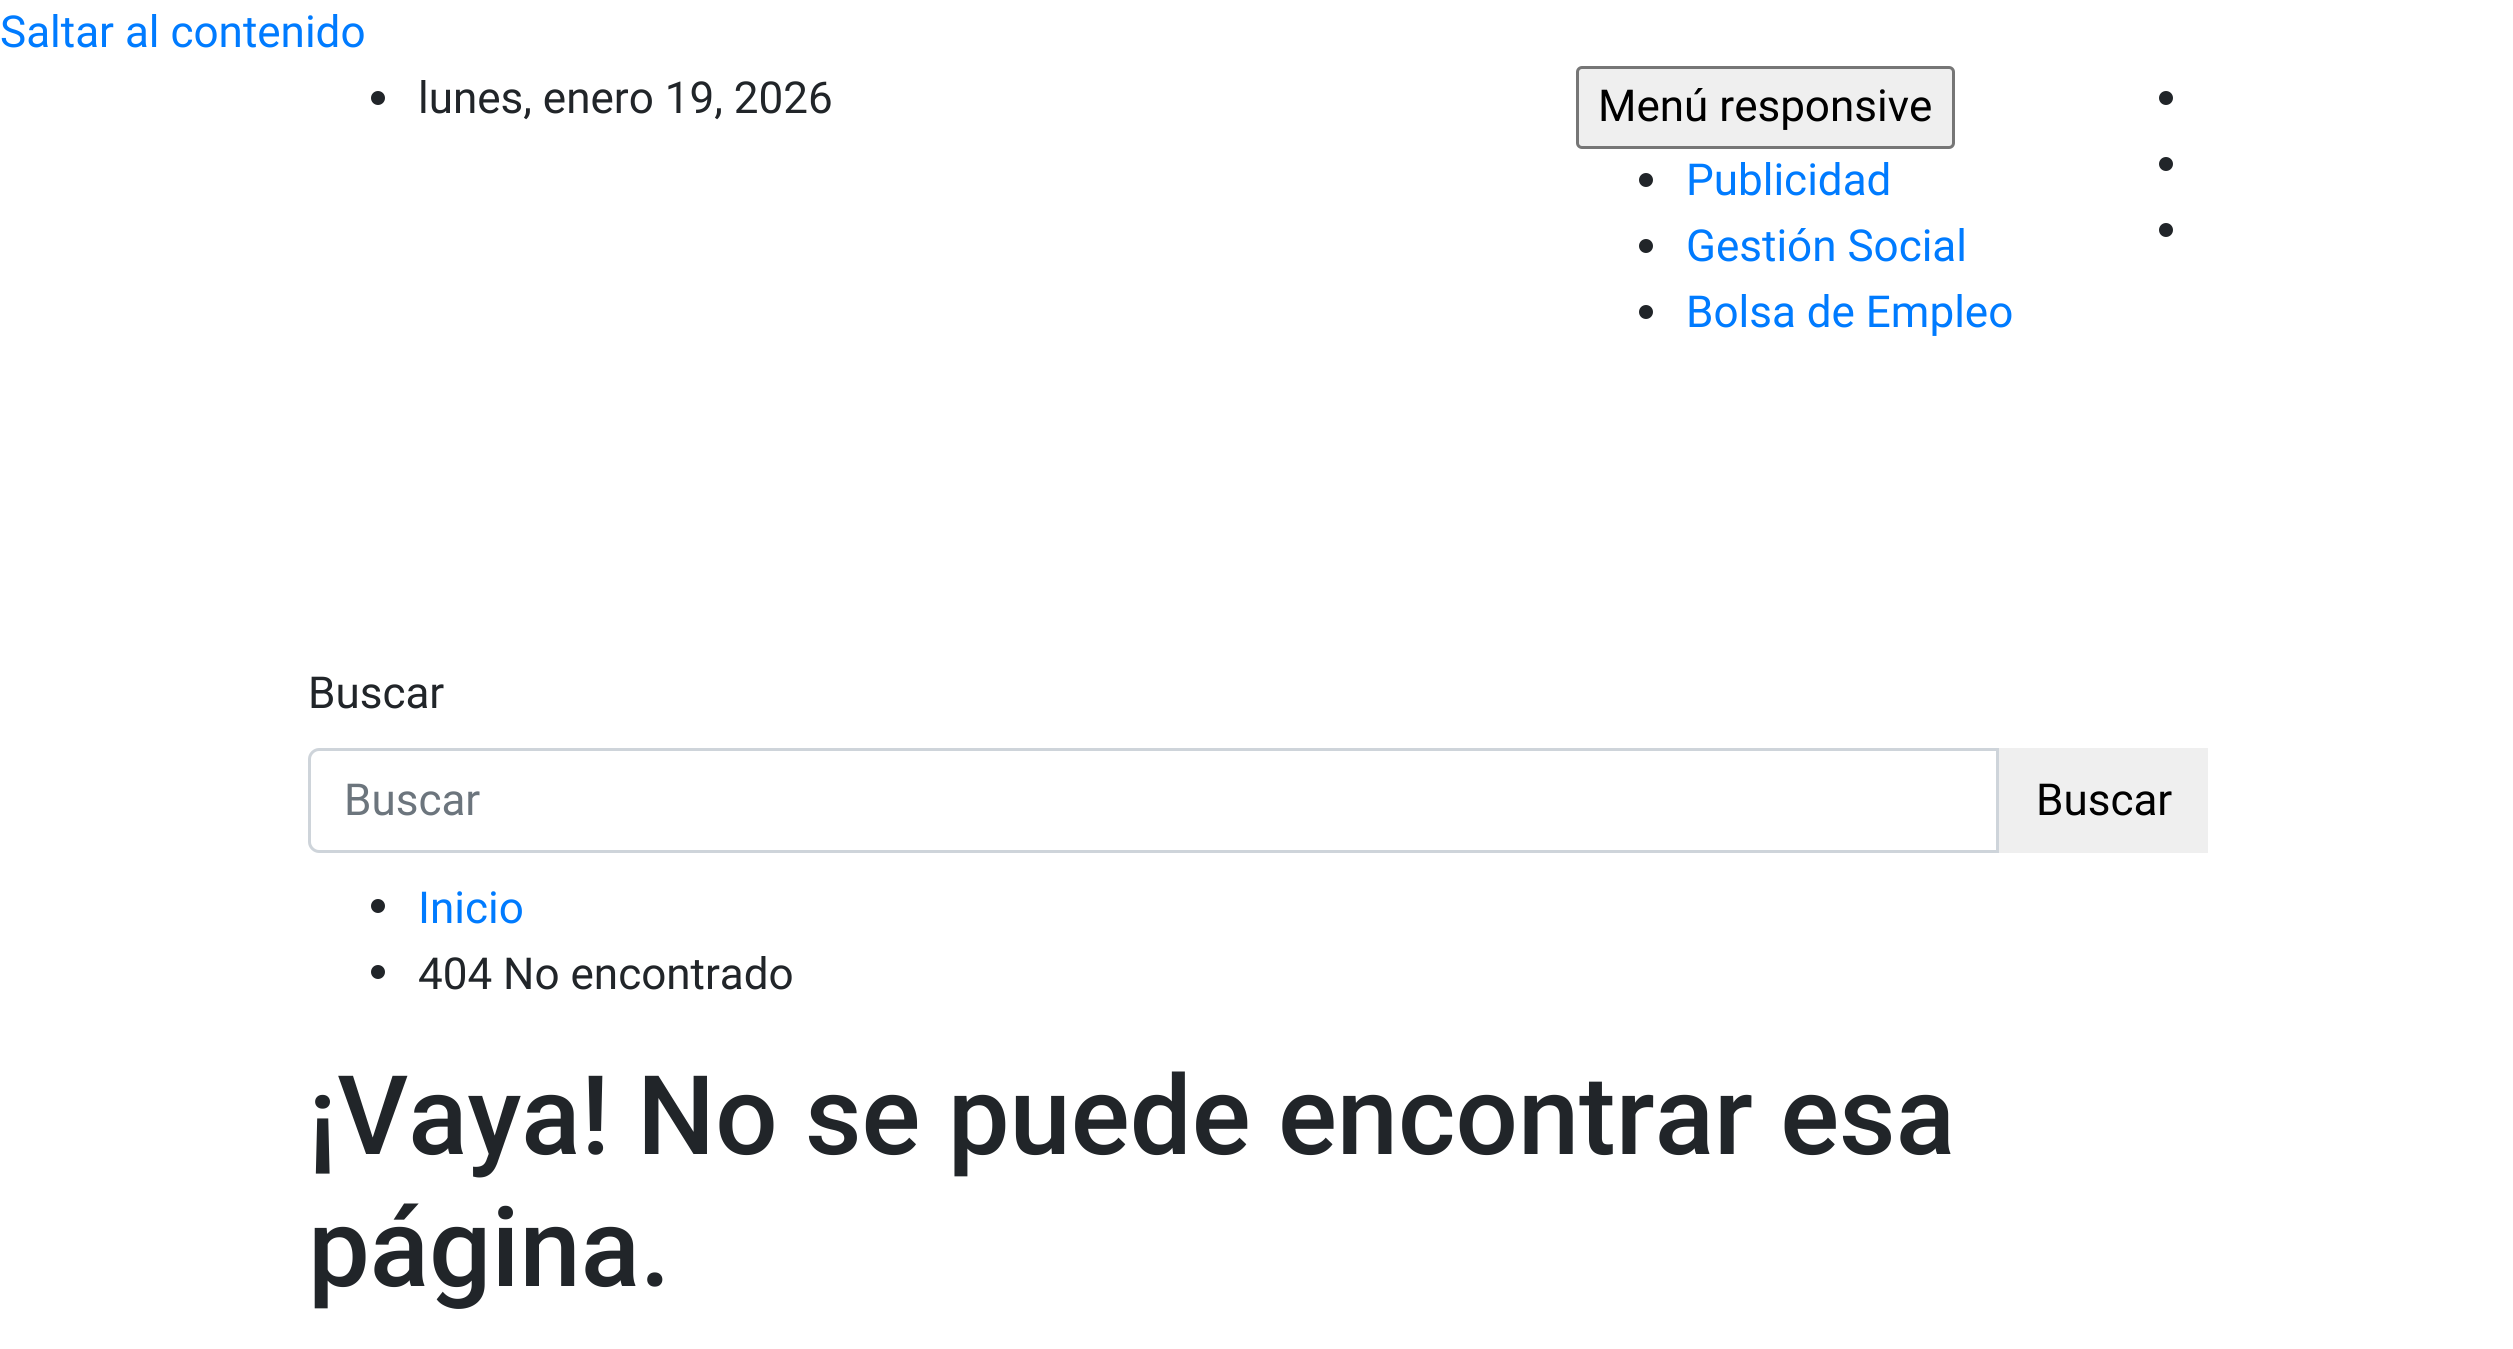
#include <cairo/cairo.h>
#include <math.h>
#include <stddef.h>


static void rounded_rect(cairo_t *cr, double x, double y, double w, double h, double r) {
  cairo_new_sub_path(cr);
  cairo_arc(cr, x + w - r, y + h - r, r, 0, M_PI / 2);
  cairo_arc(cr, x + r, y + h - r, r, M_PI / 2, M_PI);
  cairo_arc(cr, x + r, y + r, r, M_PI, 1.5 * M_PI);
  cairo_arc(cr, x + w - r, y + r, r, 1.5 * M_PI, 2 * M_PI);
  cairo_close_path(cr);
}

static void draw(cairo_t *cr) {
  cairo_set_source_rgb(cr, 1, 1, 1);
  cairo_paint(cr);
  cairo_set_source_rgb(cr, 33 / 255.0, 37 / 255.0, 41 / 255.0);
  cairo_arc(cr, 378, 98, 7, 0, 2 * M_PI);
  cairo_fill(cr);
  cairo_set_source_rgb(cr, 239 / 255.0, 239 / 255.0, 239 / 255.0);
  rounded_rect(cr, 1577.5, 67.5, 376, 80, 4.5);
  cairo_fill_preserve(cr);
  cairo_set_source_rgb(cr, 118 / 255.0, 118 / 255.0, 118 / 255.0);
  cairo_set_line_width(cr, 3);
  cairo_stroke(cr);
  cairo_set_source_rgb(cr, 33 / 255.0, 37 / 255.0, 41 / 255.0);
  cairo_arc(cr, 1646, 180, 7, 0, 2 * M_PI);
  cairo_fill(cr);
  cairo_arc(cr, 1646, 246, 7, 0, 2 * M_PI);
  cairo_fill(cr);
  cairo_arc(cr, 1646, 312, 7, 0, 2 * M_PI);
  cairo_fill(cr);
  cairo_arc(cr, 2166, 98, 7, 0, 2 * M_PI);
  cairo_fill(cr);
  cairo_arc(cr, 2166, 164, 7, 0, 2 * M_PI);
  cairo_fill(cr);
  cairo_arc(cr, 2166, 230, 7, 0, 2 * M_PI);
  cairo_fill(cr);
  cairo_new_path(cr);
  cairo_move_to(cr, 319, 749.5);
  cairo_line_to(cr, 1997.5, 749.5);
  cairo_line_to(cr, 1997.5, 851.5);
  cairo_line_to(cr, 319, 851.5);
  cairo_curve_to(cr, 314, 851.5, 309.5, 847, 309.5, 842);
  cairo_line_to(cr, 309.5, 759);
  cairo_curve_to(cr, 309.5, 754, 314, 749.5, 319, 749.5);
  cairo_close_path(cr);
  cairo_set_source_rgb(cr, 206 / 255.0, 212 / 255.0, 218 / 255.0);
  cairo_stroke(cr);
  cairo_set_source_rgb(cr, 239 / 255.0, 239 / 255.0, 239 / 255.0);
  cairo_rectangle(cr, 1999, 748, 209, 105);
  cairo_fill(cr);
  cairo_set_source_rgb(cr, 33 / 255.0, 37 / 255.0, 41 / 255.0);
  cairo_arc(cr, 378, 906, 7, 0, 2 * M_PI);
  cairo_fill(cr);
  cairo_arc(cr, 378, 972, 7, 0, 2 * M_PI);
  cairo_fill(cr);
  cairo_select_font_face(cr, "Roboto", CAIRO_FONT_SLANT_NORMAL, CAIRO_FONT_WEIGHT_NORMAL);
  cairo_set_font_size(cr, 44);
  cairo_set_source_rgb(cr, 0, 123 / 255.0, 1);
  cairo_move_to(cr, 0, 47);
  cairo_show_text(cr, "Saltar al contenido");
  cairo_set_source_rgb(cr, 33 / 255.0, 37 / 255.0, 41 / 255.0);
  cairo_move_to(cr, 418, 113);
  cairo_show_text(cr, "lunes, enero 19, 2026");
  cairo_set_source_rgb(cr, 0, 0, 0);
  cairo_move_to(cr, 1598, 121);
  cairo_show_text(cr, "Menú responsive");
  cairo_set_source_rgb(cr, 0, 123 / 255.0, 1);
  cairo_move_to(cr, 1686, 195);
  cairo_show_text(cr, "Publicidad");
  cairo_move_to(cr, 1686, 261);
  cairo_show_text(cr, "Gestión Social");
  cairo_move_to(cr, 1686, 327);
  cairo_show_text(cr, "Bolsa de Empleo");
  cairo_set_source_rgb(cr, 33 / 255.0, 37 / 255.0, 41 / 255.0);
  cairo_move_to(cr, 308, 708);
  cairo_show_text(cr, "Buscar");
  cairo_set_source_rgb(cr, 108 / 255.0, 117 / 255.0, 125 / 255.0);
  cairo_move_to(cr, 344, 815);
  cairo_show_text(cr, "Buscar");
  cairo_set_source_rgb(cr, 0, 0, 0);
  cairo_move_to(cr, 2036, 815);
  cairo_show_text(cr, "Buscar");
  cairo_set_source_rgb(cr, 0, 123 / 255.0, 1);
  cairo_move_to(cr, 418, 923);
  cairo_show_text(cr, "Inicio");
  cairo_set_source_rgb(cr, 33 / 255.0, 37 / 255.0, 41 / 255.0);
  cairo_move_to(cr, 418, 989);
  cairo_show_text(cr, "404 No encontrado");
  cairo_select_font_face(cr, "Roboto Medium", CAIRO_FONT_SLANT_NORMAL, CAIRO_FONT_WEIGHT_NORMAL);
  cairo_set_font_size(cr, 110);
  cairo_move_to(cr, 308, 1154);
  cairo_show_text(cr, "¡Vaya! No se puede encontrar esa");
  cairo_move_to(cr, 308, 1286);
  cairo_show_text(cr, "página.");
}

int main(void) {
  cairo_surface_t *surface = cairo_image_surface_create(CAIRO_FORMAT_RGB24, 2513, 1349);
  cairo_t *cr = cairo_create(surface);
  cairo_font_options_t *options = cairo_font_options_create();
  cairo_font_options_set_hint_metrics(options, CAIRO_HINT_METRICS_OFF);
  cairo_font_options_set_hint_style(options, CAIRO_HINT_STYLE_NONE);
  cairo_set_font_options(cr, options);
  cairo_set_miter_limit(cr, 4);
  draw(cr);
  cairo_surface_write_to_png(surface, "out.png");
  cairo_font_options_destroy(options);
  cairo_destroy(cr);
  cairo_surface_destroy(surface);
  return 0;
}
